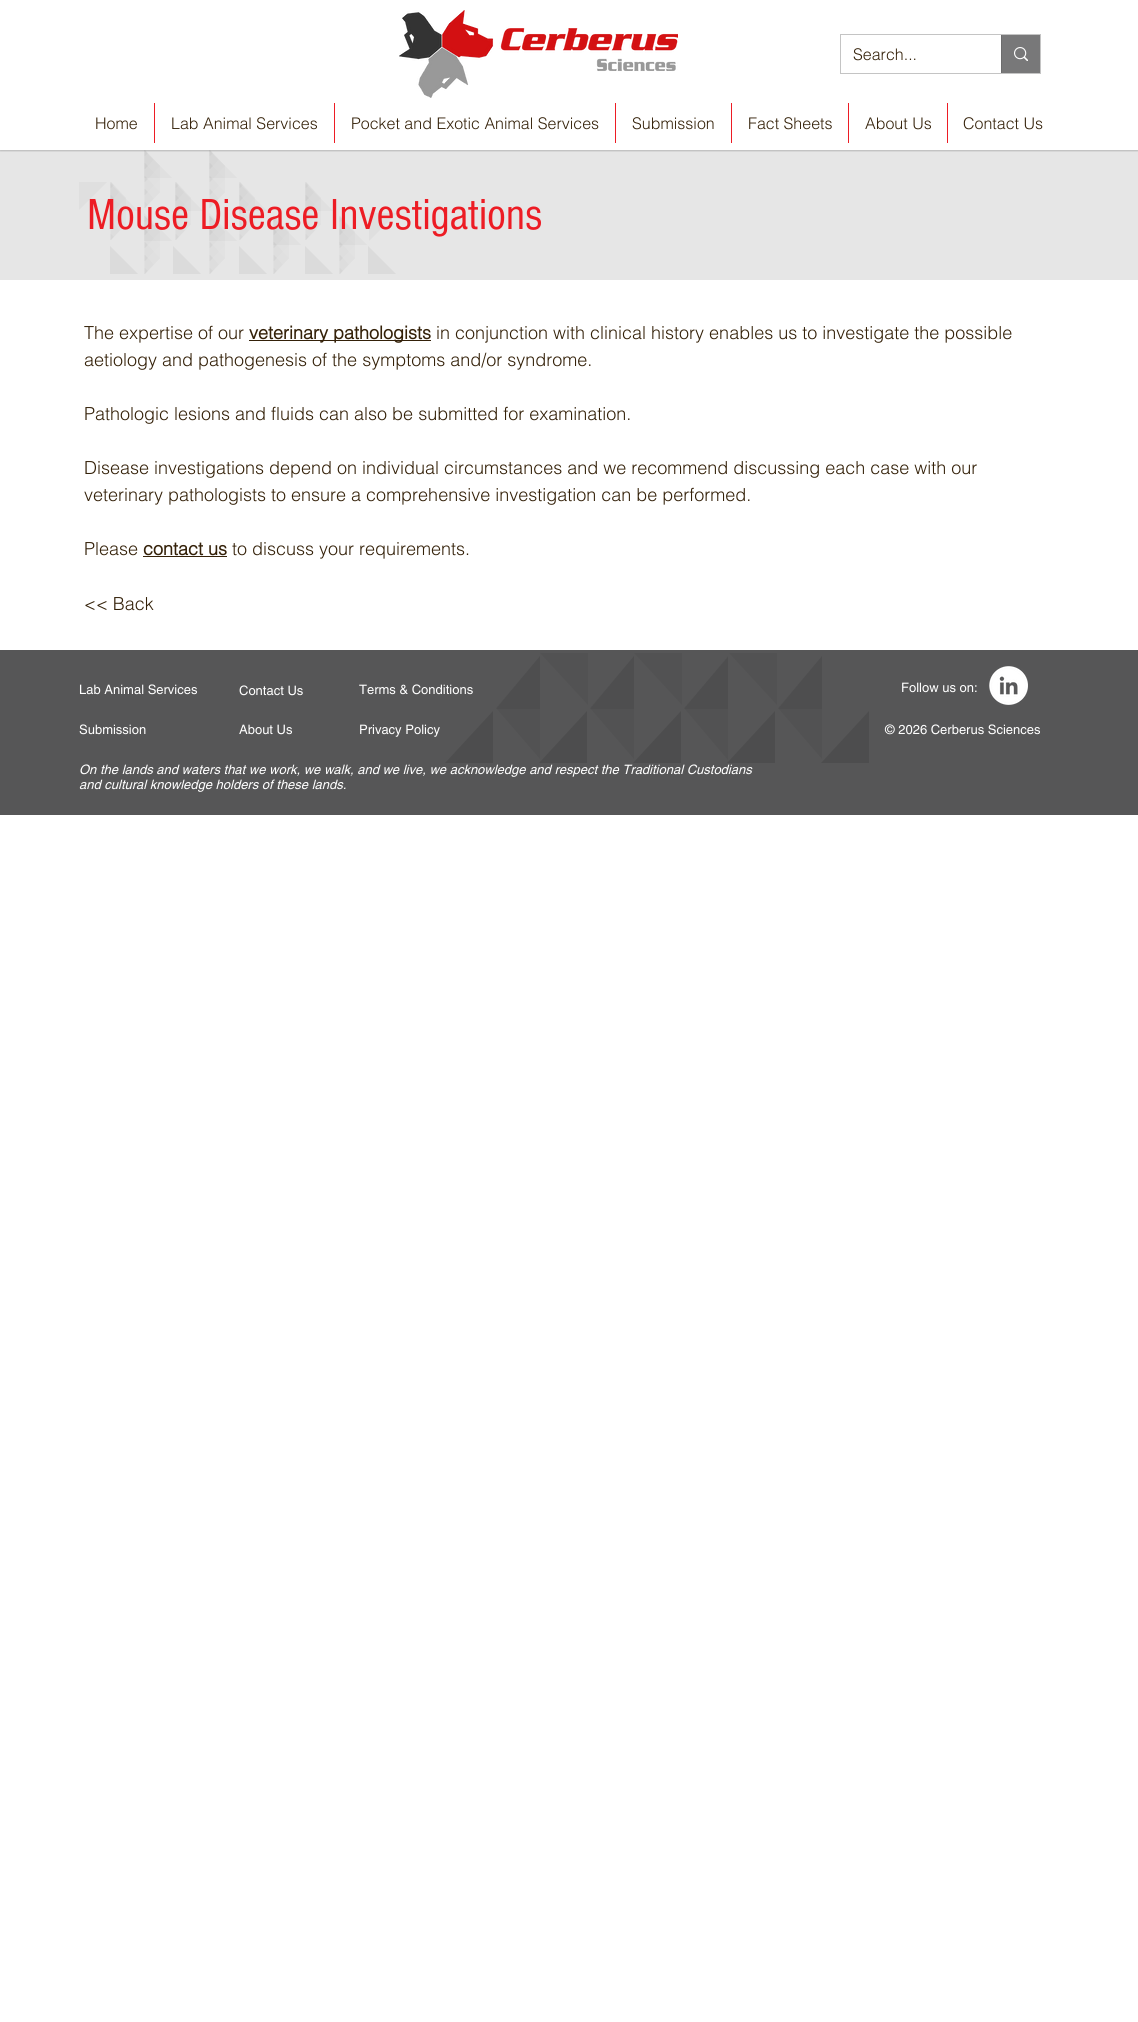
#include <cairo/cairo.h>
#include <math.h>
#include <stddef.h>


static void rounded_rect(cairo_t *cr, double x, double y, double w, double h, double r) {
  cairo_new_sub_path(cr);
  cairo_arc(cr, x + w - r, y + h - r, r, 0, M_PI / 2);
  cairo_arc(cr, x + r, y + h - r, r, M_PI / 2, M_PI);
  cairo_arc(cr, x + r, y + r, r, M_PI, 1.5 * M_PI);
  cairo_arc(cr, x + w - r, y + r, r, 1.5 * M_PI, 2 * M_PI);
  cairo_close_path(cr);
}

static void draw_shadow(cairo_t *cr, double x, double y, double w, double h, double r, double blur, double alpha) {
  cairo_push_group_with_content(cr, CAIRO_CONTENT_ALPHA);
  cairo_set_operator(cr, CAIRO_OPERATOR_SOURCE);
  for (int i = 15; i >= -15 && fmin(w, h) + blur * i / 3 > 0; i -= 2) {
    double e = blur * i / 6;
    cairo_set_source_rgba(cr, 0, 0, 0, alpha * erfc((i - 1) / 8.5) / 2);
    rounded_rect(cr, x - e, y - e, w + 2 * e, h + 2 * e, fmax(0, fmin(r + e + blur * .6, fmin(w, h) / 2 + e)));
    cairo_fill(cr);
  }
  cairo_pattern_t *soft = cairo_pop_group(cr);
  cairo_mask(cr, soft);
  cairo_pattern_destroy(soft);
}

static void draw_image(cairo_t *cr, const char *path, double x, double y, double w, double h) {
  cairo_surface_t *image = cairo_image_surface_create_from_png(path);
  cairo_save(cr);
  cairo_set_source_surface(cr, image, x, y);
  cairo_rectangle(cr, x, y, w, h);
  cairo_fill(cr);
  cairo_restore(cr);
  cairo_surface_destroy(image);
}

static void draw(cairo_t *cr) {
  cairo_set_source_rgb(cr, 1, 1, 1);
  cairo_paint(cr);
  cairo_set_source_rgb(cr, 230 / 255.0, 230 / 255.0, 230 / 255.0);
  cairo_rectangle(cr, 0, 150, 1138, 130);
  cairo_fill(cr);
  draw_image(cr, "images/3.png", 144, 150, 16, 58);
  cairo_set_source_rgba(cr, 0, 0, 0, 0.03);
  cairo_new_path(cr);
  cairo_move_to(cr, 172, 178);
  cairo_line_to(cr, 144, 178);
  cairo_line_to(cr, 144, 150);
  cairo_close_path(cr);
  cairo_fill(cr);
  draw_image(cr, "images/3.png", 209, 150, 16, 58);
  cairo_new_path(cr);
  cairo_move_to(cr, 237, 178);
  cairo_line_to(cr, 209, 178);
  cairo_line_to(cr, 209, 150);
  cairo_close_path(cr);
  cairo_fill(cr);
  cairo_save(cr);
  cairo_rectangle(cr, 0, 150, 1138, 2);
  cairo_clip(cr);
  cairo_set_source_rgb(cr, 0, 0, 0);
  draw_shadow(cr, 0, 0, 1138, 150, 0, 1.5, 0.4);
  cairo_restore(cr);
  draw_image(cr, "images/1.png", 399, 10, 279, 88);
  cairo_rectangle(cr, 840.5, 34.5, 200, 39);
  cairo_set_source_rgb(cr, 196 / 255.0, 196 / 255.0, 196 / 255.0);
  cairo_set_line_width(cr, 1);
  cairo_stroke(cr);
  cairo_set_source_rgb(cr, 120 / 255.0, 120 / 255.0, 121 / 255.0);
  cairo_rectangle(cr, 1002, 35, 38, 38);
  cairo_fill(cr);
  cairo_set_source_rgb(cr, 108 / 255.0, 108 / 255.0, 109 / 255.0);
  cairo_rectangle(cr, 1001, 35, 1, 38);
  cairo_fill(cr);
  draw_image(cr, "images/2.png", 1014, 47, 14, 14);
  cairo_set_source_rgb(cr, 237 / 255.0, 28 / 255.0, 36 / 255.0);
  cairo_rectangle(cr, 154, 103, 1, 40);
  cairo_fill(cr);
  cairo_rectangle(cr, 334, 103, 1, 40);
  cairo_fill(cr);
  cairo_rectangle(cr, 615, 103, 1, 40);
  cairo_fill(cr);
  cairo_rectangle(cr, 731, 103, 1, 40);
  cairo_fill(cr);
  cairo_rectangle(cr, 848, 103, 1, 40);
  cairo_fill(cr);
  cairo_rectangle(cr, 947, 103, 1, 40);
  cairo_fill(cr);
  cairo_set_source_rgb(cr, 223 / 255.0, 223 / 255.0, 223 / 255.0);
  cairo_new_path(cr);
  cairo_move_to(cr, 79, 210);
  cairo_line_to(cr, 79, 182);
  cairo_line_to(cr, 107, 182);
  cairo_close_path(cr);
  cairo_fill(cr);
  draw_image(cr, "images/3.png", 110, 182, 16, 58);
  draw_image(cr, "images/3.png", 175, 182, 16, 58);
  draw_image(cr, "images/3.png", 239, 182, 16, 58);
  draw_image(cr, "images/3.png", 305, 182, 16, 58);
  draw_image(cr, "images/3.png", 144, 216, 16, 58);
  cairo_set_source_rgba(cr, 0, 0, 0, 0.03);
  cairo_new_path(cr);
  cairo_move_to(cr, 172, 241);
  cairo_line_to(cr, 144, 241);
  cairo_line_to(cr, 144, 213);
  cairo_close_path(cr);
  cairo_move_to(cr, 138, 211);
  cairo_line_to(cr, 110, 211);
  cairo_line_to(cr, 110, 183);
  cairo_close_path(cr);
  cairo_fill(cr);
  cairo_new_path(cr);
  cairo_move_to(cr, 203, 211);
  cairo_line_to(cr, 175, 211);
  cairo_line_to(cr, 175, 183);
  cairo_close_path(cr);
  cairo_fill(cr);
  cairo_new_path(cr);
  cairo_move_to(cr, 267, 211);
  cairo_line_to(cr, 239, 211);
  cairo_line_to(cr, 239, 183);
  cairo_close_path(cr);
  cairo_fill(cr);
  cairo_new_path(cr);
  cairo_move_to(cr, 333, 211);
  cairo_line_to(cr, 305, 211);
  cairo_line_to(cr, 305, 183);
  cairo_close_path(cr);
  cairo_fill(cr);
  draw_image(cr, "images/3.png", 209, 216, 16, 58);
  cairo_new_path(cr);
  cairo_move_to(cr, 237, 241);
  cairo_line_to(cr, 209, 241);
  cairo_line_to(cr, 209, 213);
  cairo_close_path(cr);
  cairo_fill(cr);
  cairo_set_source_rgb(cr, 223 / 255.0, 223 / 255.0, 223 / 255.0);
  cairo_new_path(cr);
  cairo_move_to(cr, 369, 241);
  cairo_line_to(cr, 369, 213);
  cairo_line_to(cr, 397, 213);
  cairo_close_path(cr);
  cairo_fill(cr);
  draw_image(cr, "images/3.png", 273, 216, 16, 58);
  draw_image(cr, "images/3.png", 339, 216, 16, 58);
  cairo_set_source_rgba(cr, 0, 0, 0, 0.03);
  cairo_new_path(cr);
  cairo_move_to(cr, 301, 245);
  cairo_line_to(cr, 273, 245);
  cairo_line_to(cr, 273, 217);
  cairo_close_path(cr);
  cairo_fill(cr);
  cairo_new_path(cr);
  cairo_move_to(cr, 367, 245);
  cairo_line_to(cr, 339, 245);
  cairo_line_to(cr, 339, 217);
  cairo_close_path(cr);
  cairo_fill(cr);
  cairo_set_source_rgb(cr, 219 / 255.0, 219 / 255.0, 219 / 255.0);
  cairo_new_path(cr);
  cairo_move_to(cr, 138, 274);
  cairo_line_to(cr, 110, 274);
  cairo_line_to(cr, 110, 246);
  cairo_close_path(cr);
  cairo_fill(cr);
  cairo_new_path(cr);
  cairo_move_to(cr, 201, 274);
  cairo_line_to(cr, 173, 274);
  cairo_line_to(cr, 173, 246);
  cairo_close_path(cr);
  cairo_fill(cr);
  cairo_new_path(cr);
  cairo_move_to(cr, 267, 274);
  cairo_line_to(cr, 239, 274);
  cairo_line_to(cr, 239, 246);
  cairo_close_path(cr);
  cairo_fill(cr);
  cairo_new_path(cr);
  cairo_move_to(cr, 333, 274);
  cairo_line_to(cr, 305, 274);
  cairo_line_to(cr, 305, 246);
  cairo_close_path(cr);
  cairo_fill(cr);
  cairo_new_path(cr);
  cairo_move_to(cr, 396, 274);
  cairo_line_to(cr, 368, 274);
  cairo_line_to(cr, 368, 246);
  cairo_close_path(cr);
  cairo_fill(cr);
  cairo_set_source_rgb(cr, 52 / 255.0, 33 / 255.0, 9 / 255.0);
  cairo_rectangle(cr, 249, 340, 182, 1);
  cairo_fill(cr);
  cairo_rectangle(cr, 143, 556, 84, 1);
  cairo_fill(cr);
  cairo_set_source_rgb(cr, 86 / 255.0, 86 / 255.0, 87 / 255.0);
  cairo_rectangle(cr, 0, 650, 1138, 165);
  cairo_fill(cr);
  cairo_set_source_rgb(cr, 82 / 255.0, 82 / 255.0, 83 / 255.0);
  cairo_new_path(cr);
  cairo_move_to(cr, 540, 656);
  cairo_line_to(cr, 540, 709);
  cairo_line_to(cr, 496, 709);
  cairo_close_path(cr);
  cairo_fill(cr);
  cairo_new_path(cr);
  cairo_move_to(cr, 540, 653);
  cairo_line_to(cr, 588, 653);
  cairo_line_to(cr, 588, 705);
  cairo_close_path(cr);
  cairo_fill(cr);
  cairo_new_path(cr);
  cairo_move_to(cr, 634, 653);
  cairo_line_to(cr, 682, 653);
  cairo_line_to(cr, 682, 705);
  cairo_close_path(cr);
  cairo_fill(cr);
  cairo_new_path(cr);
  cairo_move_to(cr, 729, 653);
  cairo_line_to(cr, 777, 653);
  cairo_line_to(cr, 777, 705);
  cairo_close_path(cr);
  cairo_fill(cr);
  cairo_set_source_rgba(cr, 0, 0, 0, 0.05);
  cairo_new_path(cr);
  cairo_move_to(cr, 540, 759);
  cairo_line_to(cr, 496, 708);
  cairo_line_to(cr, 540, 656);
  cairo_close_path(cr);
  cairo_fill(cr);
  cairo_set_source_rgb(cr, 82 / 255.0, 82 / 255.0, 83 / 255.0);
  cairo_new_path(cr);
  cairo_move_to(cr, 634, 656);
  cairo_line_to(cr, 634, 709);
  cairo_line_to(cr, 590, 709);
  cairo_close_path(cr);
  cairo_fill(cr);
  cairo_set_source_rgba(cr, 0, 0, 0, 0.05);
  cairo_new_path(cr);
  cairo_move_to(cr, 634, 759);
  cairo_line_to(cr, 590, 708);
  cairo_line_to(cr, 634, 656);
  cairo_close_path(cr);
  cairo_fill(cr);
  cairo_set_source_rgb(cr, 82 / 255.0, 82 / 255.0, 83 / 255.0);
  cairo_new_path(cr);
  cairo_move_to(cr, 728, 656);
  cairo_line_to(cr, 728, 709);
  cairo_line_to(cr, 684, 709);
  cairo_close_path(cr);
  cairo_fill(cr);
  cairo_new_path(cr);
  cairo_move_to(cr, 822, 656);
  cairo_line_to(cr, 822, 709);
  cairo_line_to(cr, 778, 709);
  cairo_close_path(cr);
  cairo_fill(cr);
  cairo_set_source_rgb(cr, 77 / 255.0, 77 / 255.0, 78 / 255.0);
  cairo_new_path(cr);
  cairo_move_to(cr, 493, 711);
  cairo_line_to(cr, 493, 763);
  cairo_line_to(cr, 445, 763);
  cairo_close_path(cr);
  cairo_fill(cr);
  cairo_new_path(cr);
  cairo_move_to(cr, 587, 711);
  cairo_line_to(cr, 587, 763);
  cairo_line_to(cr, 539, 763);
  cairo_close_path(cr);
  cairo_fill(cr);
  cairo_new_path(cr);
  cairo_move_to(cr, 681, 711);
  cairo_line_to(cr, 681, 763);
  cairo_line_to(cr, 633, 763);
  cairo_close_path(cr);
  cairo_fill(cr);
  cairo_set_source_rgba(cr, 0, 0, 0, 0.05);
  cairo_new_path(cr);
  cairo_move_to(cr, 728, 760);
  cairo_line_to(cr, 684, 708);
  cairo_line_to(cr, 728, 657);
  cairo_close_path(cr);
  cairo_fill(cr);
  cairo_set_source_rgb(cr, 77 / 255.0, 77 / 255.0, 78 / 255.0);
  cairo_new_path(cr);
  cairo_move_to(cr, 775, 711);
  cairo_line_to(cr, 775, 763);
  cairo_line_to(cr, 727, 763);
  cairo_close_path(cr);
  cairo_fill(cr);
  cairo_set_source_rgba(cr, 0, 0, 0, 0.05);
  cairo_new_path(cr);
  cairo_move_to(cr, 822, 759);
  cairo_line_to(cr, 778, 708);
  cairo_line_to(cr, 822, 656);
  cairo_close_path(cr);
  cairo_fill(cr);
  cairo_set_source_rgb(cr, 77 / 255.0, 77 / 255.0, 78 / 255.0);
  cairo_new_path(cr);
  cairo_move_to(cr, 869, 711);
  cairo_line_to(cr, 869, 763);
  cairo_line_to(cr, 821, 763);
  cairo_close_path(cr);
  cairo_fill(cr);
  draw_image(cr, "images/4.png", 989, 666, 39, 39);
  cairo_select_font_face(cr, "helvetica Light", CAIRO_FONT_SLANT_NORMAL, CAIRO_FONT_WEIGHT_NORMAL);
  cairo_set_font_size(cr, 16);
  cairo_set_source_rgb(cr, 52 / 255.0, 33 / 255.0, 9 / 255.0);
  cairo_move_to(cr, 853, 60);
  cairo_show_text(cr, "Search...");
  cairo_move_to(cr, 95, 129);
  cairo_show_text(cr, "Home");
  cairo_move_to(cr, 171, 129);
  cairo_show_text(cr, "Lab Animal Services");
  cairo_move_to(cr, 351, 129);
  cairo_show_text(cr, "Pocket and Exotic Animal Services");
  cairo_move_to(cr, 632, 129);
  cairo_show_text(cr, "Submission");
  cairo_move_to(cr, 748, 129);
  cairo_show_text(cr, "Fact Sheets");
  cairo_move_to(cr, 865, 129);
  cairo_show_text(cr, "About Us");
  cairo_move_to(cr, 963, 129);
  cairo_show_text(cr, "Contact Us");
  cairo_select_font_face(cr, "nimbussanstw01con", CAIRO_FONT_SLANT_NORMAL, CAIRO_FONT_WEIGHT_NORMAL);
  cairo_set_font_size(cr, 45);
  cairo_set_source_rgb(cr, 237 / 255.0, 28 / 255.0, 36 / 255.0);
  cairo_move_to(cr, 87, 229);
  cairo_show_text(cr, "Mouse Disease Investigations");
  cairo_select_font_face(cr, "helvetica Light", CAIRO_FONT_SLANT_NORMAL, CAIRO_FONT_WEIGHT_NORMAL);
  cairo_set_font_size(cr, 18);
  cairo_set_source_rgb(cr, 52 / 255.0, 33 / 255.0, 9 / 255.0);
  cairo_move_to(cr, 84, 339);
  cairo_show_text(cr, "The expertise of our");
  cairo_select_font_face(cr, "helvetica", CAIRO_FONT_SLANT_NORMAL, CAIRO_FONT_WEIGHT_BOLD);
  cairo_move_to(cr, 249, 339);
  cairo_show_text(cr, "veterinary pathologists");
  cairo_select_font_face(cr, "helvetica Light", CAIRO_FONT_SLANT_NORMAL, CAIRO_FONT_WEIGHT_NORMAL);
  cairo_move_to(cr, 436, 339);
  cairo_show_text(cr, "in conjunction with clinical history enables us to investigate the possible");
  cairo_move_to(cr, 84, 366);
  cairo_show_text(cr, "aetiology and pathogenesis of the symptoms and/or syndrome.");
  cairo_move_to(cr, 84, 420);
  cairo_show_text(cr, "Pathologic lesions and fluids can also be submitted for examination.");
  cairo_move_to(cr, 84, 474);
  cairo_show_text(cr, "Disease investigations depend on individual circumstances and we recommend discussing each case with our");
  cairo_move_to(cr, 84, 501);
  cairo_show_text(cr, "veterinary pathologists to ensure a comprehensive investigation can be performed.");
  cairo_move_to(cr, 84, 555);
  cairo_show_text(cr, "Please");
  cairo_select_font_face(cr, "helvetica", CAIRO_FONT_SLANT_NORMAL, CAIRO_FONT_WEIGHT_BOLD);
  cairo_move_to(cr, 143, 555);
  cairo_show_text(cr, "contact us");
  cairo_select_font_face(cr, "helvetica Light", CAIRO_FONT_SLANT_NORMAL, CAIRO_FONT_WEIGHT_NORMAL);
  cairo_move_to(cr, 232, 555);
  cairo_show_text(cr, "to discuss your requirements.");
  cairo_move_to(cr, 84, 610);
  cairo_show_text(cr, "<< Back");
  cairo_select_font_face(cr, "helvetica", CAIRO_FONT_SLANT_NORMAL, CAIRO_FONT_WEIGHT_NORMAL);
  cairo_set_font_size(cr, 13);
  cairo_set_source_rgb(cr, 1, 1, 1);
  cairo_move_to(cr, 79, 694);
  cairo_show_text(cr, "Lab Animal Services");
  cairo_move_to(cr, 239, 695);
  cairo_show_text(cr, "Contact Us");
  cairo_move_to(cr, 359, 694);
  cairo_show_text(cr, "Terms & Conditions");
  cairo_move_to(cr, 901, 692);
  cairo_show_text(cr, "Follow us on:");
  cairo_move_to(cr, 79, 734);
  cairo_show_text(cr, "Submission");
  cairo_move_to(cr, 239, 734);
  cairo_show_text(cr, "About Us");
  cairo_move_to(cr, 359, 734);
  cairo_show_text(cr, "Privacy Policy");
  cairo_move_to(cr, 885, 734);
  cairo_show_text(cr, "© 2026 Cerberus Sciences");
  cairo_select_font_face(cr, "helvetica", CAIRO_FONT_SLANT_ITALIC, CAIRO_FONT_WEIGHT_NORMAL);
  cairo_move_to(cr, 79, 774);
  cairo_show_text(cr, "On the lands and waters that we work, we walk, and we live, we acknowledge and respect the Traditional Custodians");
  cairo_move_to(cr, 79, 789);
  cairo_show_text(cr, "and cultural knowledge holders of these lands.");
}

int main(void) {
  cairo_surface_t *surface = cairo_image_surface_create(CAIRO_FORMAT_RGB24, 1138, 2022);
  cairo_t *cr = cairo_create(surface);
  cairo_font_options_t *options = cairo_font_options_create();
  cairo_font_options_set_hint_metrics(options, CAIRO_HINT_METRICS_OFF);
  cairo_font_options_set_hint_style(options, CAIRO_HINT_STYLE_NONE);
  cairo_set_font_options(cr, options);
  cairo_set_miter_limit(cr, 4);
  draw(cr);
  cairo_surface_write_to_png(surface, "out.png");
  cairo_font_options_destroy(options);
  cairo_destroy(cr);
  cairo_surface_destroy(surface);
  return 0;
}
